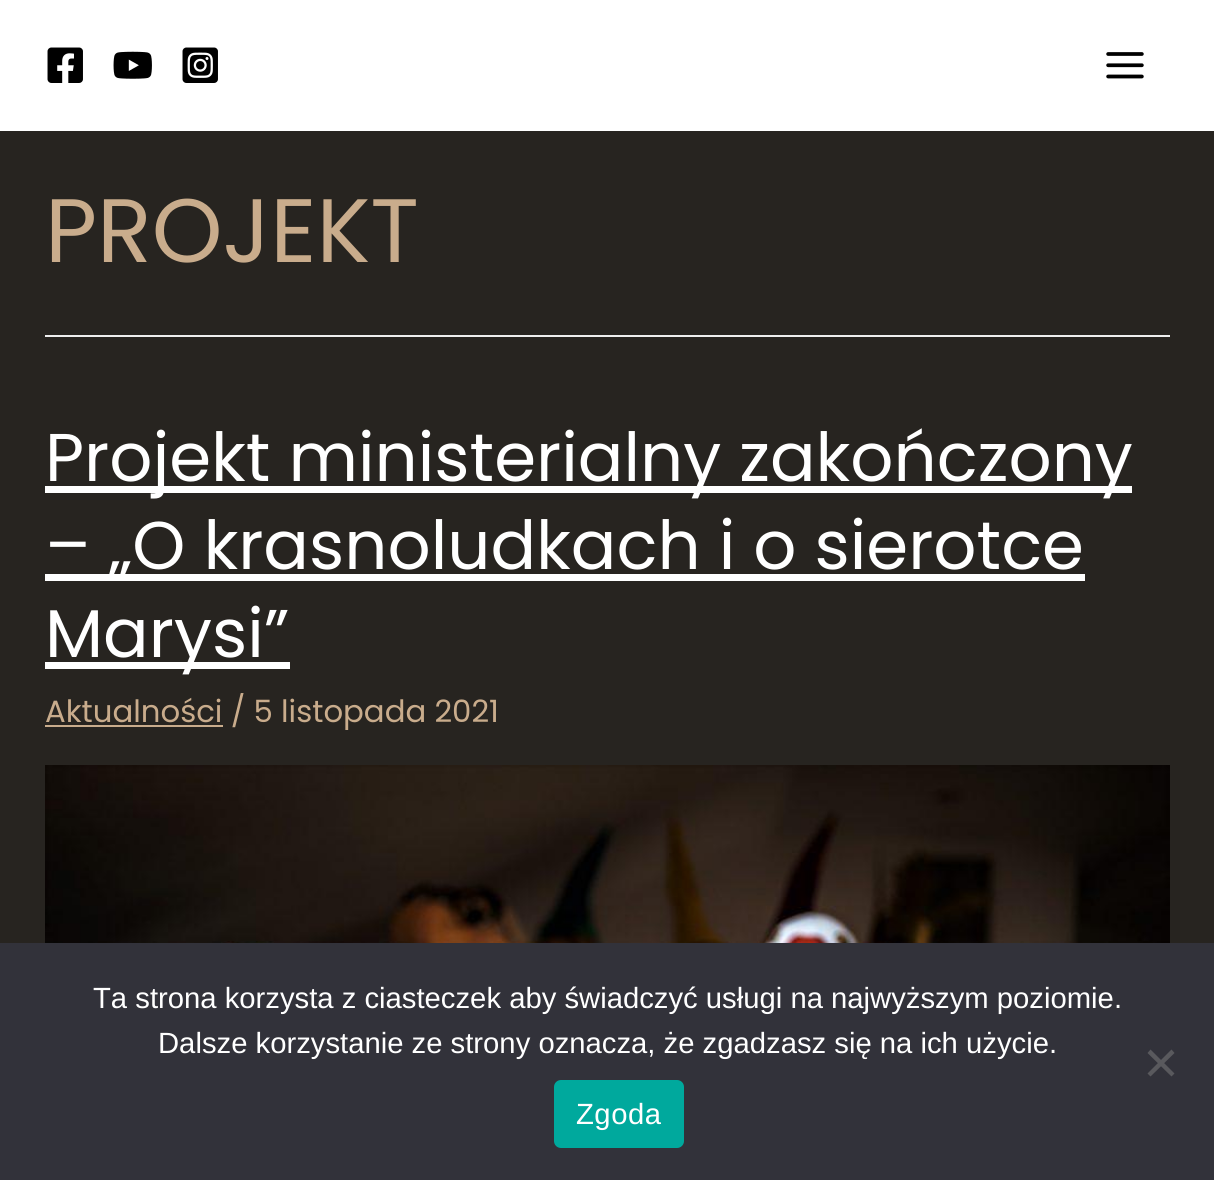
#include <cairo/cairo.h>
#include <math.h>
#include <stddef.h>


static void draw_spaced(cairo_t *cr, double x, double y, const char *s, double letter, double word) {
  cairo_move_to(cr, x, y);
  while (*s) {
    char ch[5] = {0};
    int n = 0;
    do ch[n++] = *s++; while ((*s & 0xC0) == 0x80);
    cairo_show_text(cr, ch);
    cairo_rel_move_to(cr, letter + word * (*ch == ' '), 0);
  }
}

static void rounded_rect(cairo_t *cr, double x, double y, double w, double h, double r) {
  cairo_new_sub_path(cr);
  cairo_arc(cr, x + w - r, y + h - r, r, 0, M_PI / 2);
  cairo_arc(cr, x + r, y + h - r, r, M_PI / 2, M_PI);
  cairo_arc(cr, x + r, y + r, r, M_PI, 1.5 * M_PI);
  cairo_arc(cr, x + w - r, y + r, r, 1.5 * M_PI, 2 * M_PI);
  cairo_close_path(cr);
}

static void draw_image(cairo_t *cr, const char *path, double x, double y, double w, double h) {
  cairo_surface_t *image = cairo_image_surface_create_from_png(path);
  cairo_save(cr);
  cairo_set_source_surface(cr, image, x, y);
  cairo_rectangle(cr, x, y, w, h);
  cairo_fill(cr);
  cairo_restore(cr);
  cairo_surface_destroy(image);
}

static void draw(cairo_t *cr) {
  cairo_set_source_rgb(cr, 39 / 255.0, 36 / 255.0, 32 / 255.0);
  cairo_paint(cr);
  cairo_set_source_rgb(cr, 1, 1, 1);
  cairo_rectangle(cr, 0, 0, 1214, 131);
  cairo_fill(cr);
  draw_image(cr, "images/1.png", 47, 47, 36, 36);
  draw_image(cr, "images/2.png", 113, 51, 39, 28);
  draw_image(cr, "images/3.png", 182, 47, 36, 36);
  draw_image(cr, "images/4.png", 1106, 52, 38, 27);
  cairo_set_source_rgb(cr, 238 / 255.0, 238 / 255.0, 238 / 255.0);
  cairo_rectangle(cr, 45, 335, 1125, 2);
  cairo_fill(cr);
  cairo_set_source_rgb(cr, 1, 1, 1);
  cairo_rectangle(cr, 45, 486, 1087, 7);
  cairo_fill(cr);
  cairo_rectangle(cr, 45, 574, 1040, 7);
  cairo_fill(cr);
  cairo_rectangle(cr, 45, 662, 245, 7);
  cairo_fill(cr);
  cairo_set_source_rgb(cr, 201 / 255.0, 172 / 255.0, 140 / 255.0);
  cairo_rectangle(cr, 45, 725, 178, 2);
  cairo_fill(cr);
  draw_image(cr, "images/5.png", 45, 765, 1125, 178);
  cairo_set_source_rgb(cr, 50 / 255.0, 50 / 255.0, 58 / 255.0);
  cairo_rectangle(cr, 0, 943, 1214, 237);
  cairo_fill(cr);
  cairo_set_source_rgb(cr, 89 / 255.0, 89 / 255.0, 93 / 255.0);
  cairo_new_path(cr);
  cairo_move_to(cr, 1171.5, 1049.5);
  cairo_line_to(cr, 1174.5, 1053);
  cairo_line_to(cr, 1150.5, 1076.5);
  cairo_line_to(cr, 1147.5, 1073.5);
  cairo_close_path(cr);
  cairo_fill(cr);
  cairo_new_path(cr);
  cairo_move_to(cr, 1147.5, 1053);
  cairo_line_to(cr, 1150.5, 1049.5);
  cairo_line_to(cr, 1174.5, 1073.5);
  cairo_line_to(cr, 1171.5, 1076.5);
  cairo_close_path(cr);
  cairo_fill(cr);
  cairo_set_source_rgb(cr, 0, 169 / 255.0, 157 / 255.0);
  rounded_rect(cr, 554, 1080, 130, 68, 7);
  cairo_fill(cr);
  cairo_select_font_face(cr, "Poppins", CAIRO_FONT_SLANT_NORMAL, CAIRO_FONT_WEIGHT_NORMAL);
  cairo_set_font_size(cr, 90);
  cairo_set_source_rgb(cr, 201 / 255.0, 172 / 255.0, 140 / 255.0);
  cairo_move_to(cr, 45, 262);
  cairo_show_text(cr, "PROJEKT");
  cairo_set_font_size(cr, 67.5);
  cairo_set_source_rgb(cr, 1, 1, 1);
  cairo_move_to(cr, 45, 481);
  cairo_show_text(cr, "Projekt ministerialny zakończony");
  cairo_move_to(cr, 45, 569);
  cairo_show_text(cr, "– „O krasnoludkach i o sierotce");
  cairo_move_to(cr, 45, 657);
  cairo_show_text(cr, "Marysi”");
  cairo_set_font_size(cr, 30.75);
  cairo_set_source_rgb(cr, 201 / 255.0, 172 / 255.0, 140 / 255.0);
  cairo_move_to(cr, 45, 722);
  cairo_show_text(cr, "Aktualności / 5 listopada 2021");
  cairo_select_font_face(cr, "Liberation Sans", CAIRO_FONT_SLANT_NORMAL, CAIRO_FONT_WEIGHT_NORMAL);
  cairo_set_font_size(cr, 29.25);
  cairo_set_source_rgb(cr, 1, 1, 1);
  cairo_move_to(cr, 93, 1008);
  cairo_show_text(cr, "Ta strona korzysta z ciasteczek aby świadczyć usługi na najwyższym poziomie.");
  cairo_move_to(cr, 158, 1053);
  cairo_show_text(cr, "Dalsze korzystanie ze strony oznacza, że zgadzasz się na ich użycie.");
  draw_spaced(cr, 576, 1124, "Zgoda", 0.5, 0);
}

int main(void) {
  cairo_surface_t *surface = cairo_image_surface_create(CAIRO_FORMAT_RGB24, 1214, 1180);
  cairo_t *cr = cairo_create(surface);
  cairo_font_options_t *options = cairo_font_options_create();
  cairo_font_options_set_hint_metrics(options, CAIRO_HINT_METRICS_OFF);
  cairo_font_options_set_hint_style(options, CAIRO_HINT_STYLE_NONE);
  cairo_set_font_options(cr, options);
  cairo_set_miter_limit(cr, 4);
  draw(cr);
  cairo_surface_write_to_png(surface, "out.png");
  cairo_font_options_destroy(options);
  cairo_destroy(cr);
  cairo_surface_destroy(surface);
  return 0;
}
